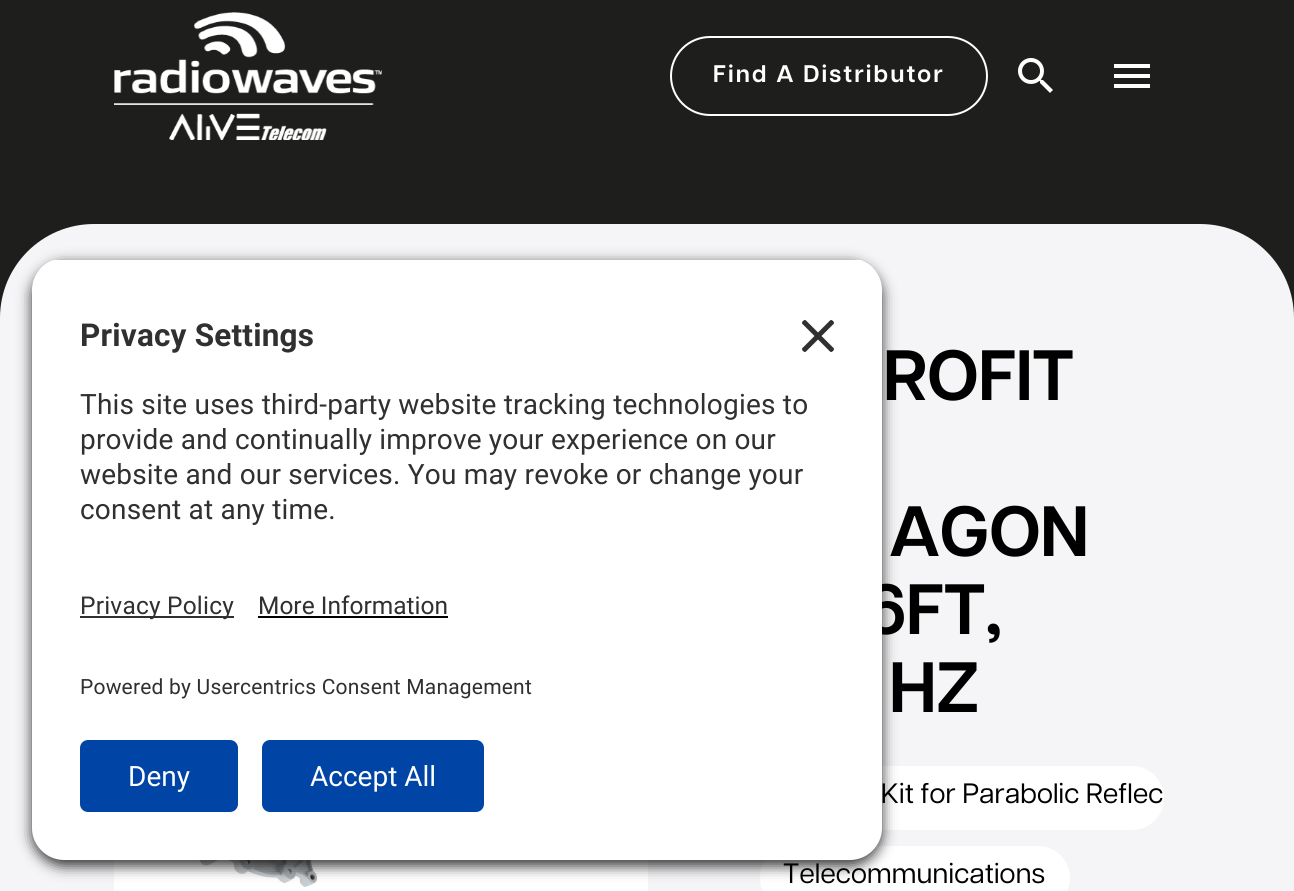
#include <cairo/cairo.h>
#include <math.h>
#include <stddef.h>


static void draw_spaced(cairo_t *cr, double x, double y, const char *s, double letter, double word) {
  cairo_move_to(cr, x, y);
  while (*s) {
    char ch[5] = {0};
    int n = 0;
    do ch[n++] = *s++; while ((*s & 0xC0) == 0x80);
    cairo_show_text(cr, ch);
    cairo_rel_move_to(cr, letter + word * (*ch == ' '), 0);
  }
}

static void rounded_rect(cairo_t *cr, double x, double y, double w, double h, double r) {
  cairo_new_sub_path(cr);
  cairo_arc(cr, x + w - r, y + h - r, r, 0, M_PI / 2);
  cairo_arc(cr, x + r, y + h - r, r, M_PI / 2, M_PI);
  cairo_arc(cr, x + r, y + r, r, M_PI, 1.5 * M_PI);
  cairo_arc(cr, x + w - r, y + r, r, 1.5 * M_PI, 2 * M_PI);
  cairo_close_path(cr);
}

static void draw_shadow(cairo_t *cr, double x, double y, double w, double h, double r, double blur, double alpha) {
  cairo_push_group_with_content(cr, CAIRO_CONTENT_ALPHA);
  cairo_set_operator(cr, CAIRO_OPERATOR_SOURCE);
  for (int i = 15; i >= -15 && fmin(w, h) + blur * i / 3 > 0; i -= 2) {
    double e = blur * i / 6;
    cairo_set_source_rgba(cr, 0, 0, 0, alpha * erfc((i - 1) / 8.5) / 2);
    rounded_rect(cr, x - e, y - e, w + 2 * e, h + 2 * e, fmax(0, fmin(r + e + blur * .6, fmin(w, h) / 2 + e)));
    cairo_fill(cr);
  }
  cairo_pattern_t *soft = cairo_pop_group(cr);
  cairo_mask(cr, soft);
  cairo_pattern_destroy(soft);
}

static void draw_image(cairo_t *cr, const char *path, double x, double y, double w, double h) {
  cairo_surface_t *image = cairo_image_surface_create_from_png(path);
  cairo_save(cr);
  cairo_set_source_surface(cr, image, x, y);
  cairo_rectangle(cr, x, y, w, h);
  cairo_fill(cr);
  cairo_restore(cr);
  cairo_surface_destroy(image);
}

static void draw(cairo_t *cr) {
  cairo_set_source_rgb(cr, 30 / 255.0, 30 / 255.0, 28 / 255.0);
  cairo_paint(cr);
  cairo_set_source_rgb(cr, 245 / 255.0, 245 / 255.0, 247 / 255.0);
  cairo_new_path(cr);
  cairo_move_to(cr, 94, 224);
  cairo_line_to(cr, 1200, 224);
  cairo_curve_to(cr, 1252, 224, 1294, 266, 1294, 318);
  cairo_line_to(cr, 1294, 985);
  cairo_line_to(cr, 0, 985);
  cairo_line_to(cr, 0, 318);
  cairo_curve_to(cr, 0, 266, 42, 224, 94, 224);
  cairo_close_path(cr);
  cairo_fill(cr);
  cairo_set_source_rgb(cr, 1, 1, 1);
  cairo_rectangle(cr, 114, 860, 534, 31);
  cairo_fill(cr);
  draw_image(cr, "images/4.png", 180, 860, 395, 27);
  rounded_rect(cr, 760, 766, 404, 64, 32);
  cairo_fill(cr);
  rounded_rect(cr, 760, 846, 310, 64, 32);
  cairo_fill(cr);
  cairo_set_source_rgb(cr, 0, 0, 0);
  draw_shadow(cr, 32, 264, 850, 602, 32, 7, 0.8);
  cairo_save(cr);
  cairo_new_path(cr);
  cairo_move_to(cr, 64, 258);
  cairo_line_to(cr, 850, 258);
  cairo_curve_to(cr, 867.5, 258, 882, 272.5, 882, 290);
  cairo_line_to(cr, 882, 536);
  cairo_line_to(cr, 32, 536);
  cairo_line_to(cr, 32, 290);
  cairo_curve_to(cr, 32, 272.5, 46.5, 258, 64, 258);
  cairo_close_path(cr);
  cairo_clip(cr);
  cairo_set_source_rgb(cr, 1, 1, 1);
  cairo_rectangle(cr, 32, 260, 850, 276);
  cairo_fill(cr);
  cairo_restore(cr);
  draw_image(cr, "images/1.png", 802, 320, 32, 32);
  draw_image(cr, "images/2.png", 114, 12, 268, 128);
  rounded_rect(cr, 671, 37, 316, 78, 39);
  cairo_set_source_rgb(cr, 1, 1, 1);
  cairo_stroke(cr);
  draw_image(cr, "images/3.png", 1018, 58, 35, 35);
  cairo_new_path(cr);
  cairo_move_to(cr, 1114, 64);
  cairo_line_to(cr, 1150, 64);
  cairo_line_to(cr, 1150, 68);
  cairo_line_to(cr, 1114, 68);
  cairo_close_path(cr);
  cairo_move_to(cr, 1114, 74);
  cairo_line_to(cr, 1150, 74);
  cairo_line_to(cr, 1150, 78);
  cairo_line_to(cr, 1114, 78);
  cairo_close_path(cr);
  cairo_move_to(cr, 1114, 84);
  cairo_line_to(cr, 1150, 84);
  cairo_line_to(cr, 1150, 88);
  cairo_line_to(cr, 1114, 88);
  cairo_close_path(cr);
  cairo_fill(cr);
  cairo_select_font_face(cr, "Roboto", CAIRO_FONT_SLANT_NORMAL, CAIRO_FONT_WEIGHT_BOLD);
  cairo_set_font_size(cr, 31.5);
  cairo_set_source_rgb(cr, 48 / 255.0, 48 / 255.0, 48 / 255.0);
  draw_spaced(cr, 80, 346, "Privacy Settings", 0.2, 0);
  cairo_select_font_face(cr, "Roboto", CAIRO_FONT_SLANT_NORMAL, CAIRO_FONT_WEIGHT_NORMAL);
  cairo_set_font_size(cr, 28);
  draw_spaced(cr, 80, 414, "This site uses third-party website tracking technologies to", 0.2, 0);
  draw_spaced(cr, 80, 449, "provide and continually improve your experience on our", 0.2, 0);
  draw_spaced(cr, 80, 484, "website and our services. You may revoke or change your", 0.2, 0);
  draw_spaced(cr, 80, 519, "consent at any time.", 0.2, 0);
  cairo_select_font_face(cr, "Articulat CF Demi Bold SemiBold", CAIRO_FONT_SLANT_NORMAL, CAIRO_FONT_WEIGHT_NORMAL);
  cairo_set_font_size(cr, 24);
  cairo_set_source_rgb(cr, 1, 1, 1);
  draw_spaced(cr, 713, 82, "Find A Distributor", 2.1, 0);
  cairo_set_font_size(cr, 71);
  cairo_set_source_rgb(cr, 0, 0, 0);
  draw_spaced(cr, 883, 400, "ROFIT", -0.75, 0);
  draw_spaced(cr, 889, 556, "AGON", -0.75, 0);
  draw_spaced(cr, 864, 634, "6FT,", -0.75, 0);
  cairo_set_source_rgb(cr, 1, 1, 1);
  cairo_new_path(cr);
  cairo_move_to(cr, 32, 536);
  cairo_line_to(cr, 882, 536);
  cairo_line_to(cr, 882, 828);
  cairo_curve_to(cr, 882, 845.5, 867.5, 860, 850, 860);
  cairo_line_to(cr, 64, 860);
  cairo_curve_to(cr, 46.5, 860, 32, 845.5, 32, 828);
  cairo_close_path(cr);
  cairo_fill(cr);
  cairo_set_source_rgb(cr, 48 / 255.0, 48 / 255.0, 48 / 255.0);
  cairo_rectangle(cr, 80, 616, 154, 2);
  cairo_fill(cr);
  cairo_select_font_face(cr, "Roboto", CAIRO_FONT_SLANT_NORMAL, CAIRO_FONT_WEIGHT_NORMAL);
  cairo_set_font_size(cr, 24.5);
  draw_spaced(cr, 80, 614, "Privacy Policy", 0.2, 0);
  cairo_set_source_rgb(cr, 0, 69 / 255.0, 165 / 255.0);
  rounded_rect(cr, 262, 740, 222, 72, 8);
  cairo_fill(cr);
  cairo_set_font_size(cr, 28);
  cairo_set_source_rgb(cr, 1, 1, 1);
  cairo_move_to(cr, 310, 786);
  cairo_show_text(cr, "Accept All");
  cairo_set_source_rgb(cr, 0, 69 / 255.0, 165 / 255.0);
  rounded_rect(cr, 80, 740, 158, 72, 8);
  cairo_fill(cr);
  cairo_set_source_rgb(cr, 1, 1, 1);
  cairo_move_to(cr, 128, 786);
  cairo_show_text(cr, "Deny");
  cairo_set_font_size(cr, 21);
  cairo_set_source_rgb(cr, 48 / 255.0, 48 / 255.0, 48 / 255.0);
  draw_spaced(cr, 80, 694, "Powered by Usercentrics Consent Management", 0.2, 0);
  cairo_set_font_size(cr, 24.5);
  cairo_move_to(cr, 258, 614);
  cairo_show_text(cr, "More Information");
  cairo_set_source_rgb(cr, 0, 0, 0);
  cairo_rectangle(cr, 258, 616, 190, 2);
  cairo_fill(cr);
  cairo_select_font_face(cr, "Articulat CF Demi Bold SemiBold", CAIRO_FONT_SLANT_NORMAL, CAIRO_FONT_WEIGHT_NORMAL);
  cairo_set_font_size(cr, 71);
  draw_spaced(cr, 889, 712, "HZ", -0.75, 0);
  cairo_select_font_face(cr, "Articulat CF", CAIRO_FONT_SLANT_NORMAL, CAIRO_FONT_WEIGHT_NORMAL);
  cairo_set_font_size(cr, 28);
  draw_spaced(cr, 881, 803, "Kit for Parabolic Reflec", 0.2, 0);
  draw_spaced(cr, 783, 883, "Telecommunications", 0.2, 0);
}

int main(void) {
  cairo_surface_t *surface = cairo_image_surface_create(CAIRO_FORMAT_RGB24, 1294, 891);
  cairo_t *cr = cairo_create(surface);
  cairo_font_options_t *options = cairo_font_options_create();
  cairo_font_options_set_hint_metrics(options, CAIRO_HINT_METRICS_OFF);
  cairo_font_options_set_hint_style(options, CAIRO_HINT_STYLE_NONE);
  cairo_set_font_options(cr, options);
  cairo_set_miter_limit(cr, 4);
  draw(cr);
  cairo_surface_write_to_png(surface, "out.png");
  cairo_font_options_destroy(options);
  cairo_destroy(cr);
  cairo_surface_destroy(surface);
  return 0;
}
